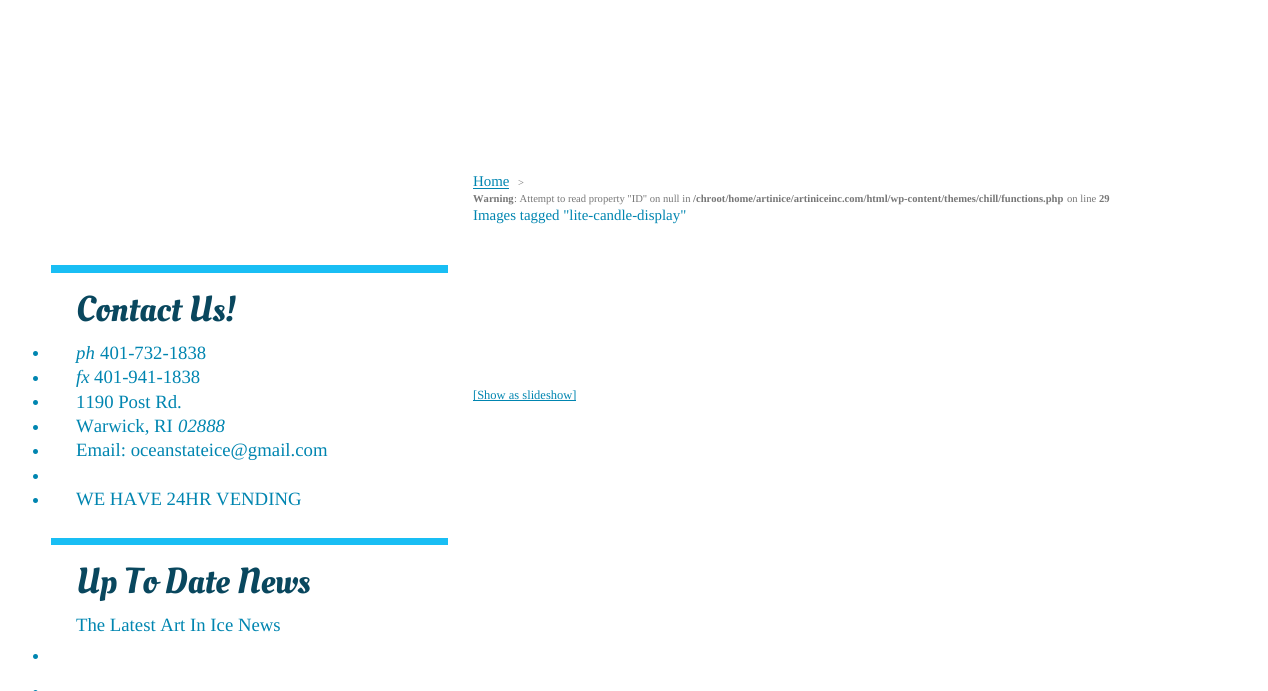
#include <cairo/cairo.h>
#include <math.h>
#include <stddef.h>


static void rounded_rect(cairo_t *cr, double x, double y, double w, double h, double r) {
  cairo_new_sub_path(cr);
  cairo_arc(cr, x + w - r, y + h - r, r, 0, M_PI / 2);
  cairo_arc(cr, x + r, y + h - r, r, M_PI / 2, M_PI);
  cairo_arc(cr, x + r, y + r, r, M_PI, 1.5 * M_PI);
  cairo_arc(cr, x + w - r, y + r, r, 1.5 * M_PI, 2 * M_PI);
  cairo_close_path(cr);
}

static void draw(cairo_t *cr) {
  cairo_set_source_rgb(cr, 1, 1, 1);
  cairo_paint(cr);
  cairo_set_source_rgb(cr, 25 / 255.0, 190 / 255.0, 244 / 255.0);
  cairo_rectangle(cr, 51, 265, 397, 8);
  cairo_fill(cr);
  cairo_set_source_rgb(cr, 0, 133 / 255.0, 176 / 255.0);
  cairo_arc(cr, 35.5, 353.5, 2.5, 0, 2 * M_PI);
  cairo_fill(cr);
  cairo_arc(cr, 35.5, 378.5, 2.5, 0, 2 * M_PI);
  cairo_fill(cr);
  cairo_arc(cr, 35.5, 402.5, 2.5, 0, 2 * M_PI);
  cairo_fill(cr);
  cairo_arc(cr, 35.5, 427.5, 2.5, 0, 2 * M_PI);
  cairo_fill(cr);
  cairo_arc(cr, 35.5, 451.5, 2.5, 0, 2 * M_PI);
  cairo_fill(cr);
  cairo_arc(cr, 35.5, 476.5, 2.5, 0, 2 * M_PI);
  cairo_fill(cr);
  cairo_arc(cr, 35.5, 500.5, 2.5, 0, 2 * M_PI);
  cairo_fill(cr);
  cairo_set_source_rgb(cr, 25 / 255.0, 190 / 255.0, 244 / 255.0);
  cairo_rectangle(cr, 51, 538, 397, 7);
  cairo_fill(cr);
  cairo_set_source_rgb(cr, 0, 133 / 255.0, 176 / 255.0);
  cairo_arc(cr, 35.5, 656.5, 2.5, 0, 2 * M_PI);
  cairo_fill(cr);
  rounded_rect(cr, 33, 690, 5, 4, 2.5);
  cairo_fill(cr);
  cairo_rectangle(cr, 473, 188, 36, 1);
  cairo_fill(cr);
  cairo_rectangle(cr, 473, 400, 103, 1);
  cairo_fill(cr);
  cairo_select_font_face(cr, "Oleo Script", CAIRO_FONT_SLANT_NORMAL, CAIRO_FONT_WEIGHT_NORMAL);
  cairo_set_font_size(cr, 36);
  cairo_set_source_rgb(cr, 9 / 255.0, 71 / 255.0, 94 / 255.0);
  cairo_move_to(cr, 76, 321);
  cairo_show_text(cr, "Contact Us!");
  cairo_select_font_face(cr, "Liberation Serif", CAIRO_FONT_SLANT_ITALIC, CAIRO_FONT_WEIGHT_NORMAL);
  cairo_set_font_size(cr, 18.75);
  cairo_set_source_rgb(cr, 0, 133 / 255.0, 176 / 255.0);
  cairo_move_to(cr, 76, 359);
  cairo_show_text(cr, "ph");
  cairo_select_font_face(cr, "Liberation Serif", CAIRO_FONT_SLANT_NORMAL, CAIRO_FONT_WEIGHT_NORMAL);
  cairo_move_to(cr, 100, 359);
  cairo_show_text(cr, "401-732-1838");
  cairo_select_font_face(cr, "Liberation Serif", CAIRO_FONT_SLANT_ITALIC, CAIRO_FONT_WEIGHT_NORMAL);
  cairo_move_to(cr, 76, 383);
  cairo_show_text(cr, "fx");
  cairo_select_font_face(cr, "Liberation Serif", CAIRO_FONT_SLANT_NORMAL, CAIRO_FONT_WEIGHT_NORMAL);
  cairo_move_to(cr, 94, 383);
  cairo_show_text(cr, "401-941-1838");
  cairo_move_to(cr, 76, 408);
  cairo_show_text(cr, "1190 Post Rd.");
  cairo_move_to(cr, 76, 432);
  cairo_show_text(cr, "Warwick, RI");
  cairo_select_font_face(cr, "Liberation Serif", CAIRO_FONT_SLANT_ITALIC, CAIRO_FONT_WEIGHT_NORMAL);
  cairo_move_to(cr, 178, 432);
  cairo_show_text(cr, "02888");
  cairo_select_font_face(cr, "Liberation Serif", CAIRO_FONT_SLANT_NORMAL, CAIRO_FONT_WEIGHT_NORMAL);
  cairo_move_to(cr, 76, 456);
  cairo_show_text(cr, "Email: oceanstateice@gmail.com");
  cairo_move_to(cr, 76, 505);
  cairo_show_text(cr, "WE HAVE 24HR VENDING");
  cairo_select_font_face(cr, "Oleo Script", CAIRO_FONT_SLANT_NORMAL, CAIRO_FONT_WEIGHT_NORMAL);
  cairo_set_font_size(cr, 36);
  cairo_set_source_rgb(cr, 9 / 255.0, 71 / 255.0, 94 / 255.0);
  cairo_move_to(cr, 76, 593);
  cairo_show_text(cr, "Up To Date News");
  cairo_select_font_face(cr, "Liberation Serif", CAIRO_FONT_SLANT_NORMAL, CAIRO_FONT_WEIGHT_NORMAL);
  cairo_set_font_size(cr, 18.75);
  cairo_set_source_rgb(cr, 0, 133 / 255.0, 176 / 255.0);
  cairo_move_to(cr, 76, 631);
  cairo_show_text(cr, "The Latest Art In Ice News");
  cairo_set_font_size(cr, 14.9);
  cairo_move_to(cr, 473, 186);
  cairo_show_text(cr, "Home");
  cairo_set_font_size(cr, 10.6);
  cairo_set_source_rgb(cr, 119 / 255.0, 119 / 255.0, 119 / 255.0);
  cairo_move_to(cr, 518, 186);
  cairo_show_text(cr, ">");
  cairo_select_font_face(cr, "Liberation Serif", CAIRO_FONT_SLANT_NORMAL, CAIRO_FONT_WEIGHT_BOLD);
  cairo_move_to(cr, 473, 202);
  cairo_show_text(cr, "Warning");
  cairo_select_font_face(cr, "Liberation Serif", CAIRO_FONT_SLANT_NORMAL, CAIRO_FONT_WEIGHT_NORMAL);
  cairo_move_to(cr, 514, 202);
  cairo_show_text(cr, ": Attempt to read property \"ID\" on null in");
  cairo_select_font_face(cr, "Liberation Serif", CAIRO_FONT_SLANT_NORMAL, CAIRO_FONT_WEIGHT_BOLD);
  cairo_move_to(cr, 693, 202);
  cairo_show_text(cr, "/chroot/home/artinice/artiniceinc.com/html/wp-content/themes/chill/functions.php");
  cairo_select_font_face(cr, "Liberation Serif", CAIRO_FONT_SLANT_NORMAL, CAIRO_FONT_WEIGHT_NORMAL);
  cairo_move_to(cr, 1067, 202);
  cairo_show_text(cr, "on line");
  cairo_select_font_face(cr, "Liberation Serif", CAIRO_FONT_SLANT_NORMAL, CAIRO_FONT_WEIGHT_BOLD);
  cairo_move_to(cr, 1099, 202);
  cairo_show_text(cr, "29");
  cairo_select_font_face(cr, "Liberation Serif", CAIRO_FONT_SLANT_NORMAL, CAIRO_FONT_WEIGHT_NORMAL);
  cairo_set_font_size(cr, 14.9);
  cairo_set_source_rgb(cr, 0, 133 / 255.0, 176 / 255.0);
  cairo_move_to(cr, 473, 220);
  cairo_show_text(cr, "Images tagged \"lite-candle-display\"");
  cairo_set_font_size(cr, 12.5);
  cairo_move_to(cr, 473, 399);
  cairo_show_text(cr, "[Show as slideshow]");
}

int main(void) {
  cairo_surface_t *surface = cairo_image_surface_create(CAIRO_FORMAT_RGB24, 1268, 691);
  cairo_t *cr = cairo_create(surface);
  cairo_font_options_t *options = cairo_font_options_create();
  cairo_font_options_set_hint_metrics(options, CAIRO_HINT_METRICS_OFF);
  cairo_font_options_set_hint_style(options, CAIRO_HINT_STYLE_NONE);
  cairo_set_font_options(cr, options);
  cairo_set_miter_limit(cr, 4);
  draw(cr);
  cairo_surface_write_to_png(surface, "out.png");
  cairo_font_options_destroy(options);
  cairo_destroy(cr);
  cairo_surface_destroy(surface);
  return 0;
}
